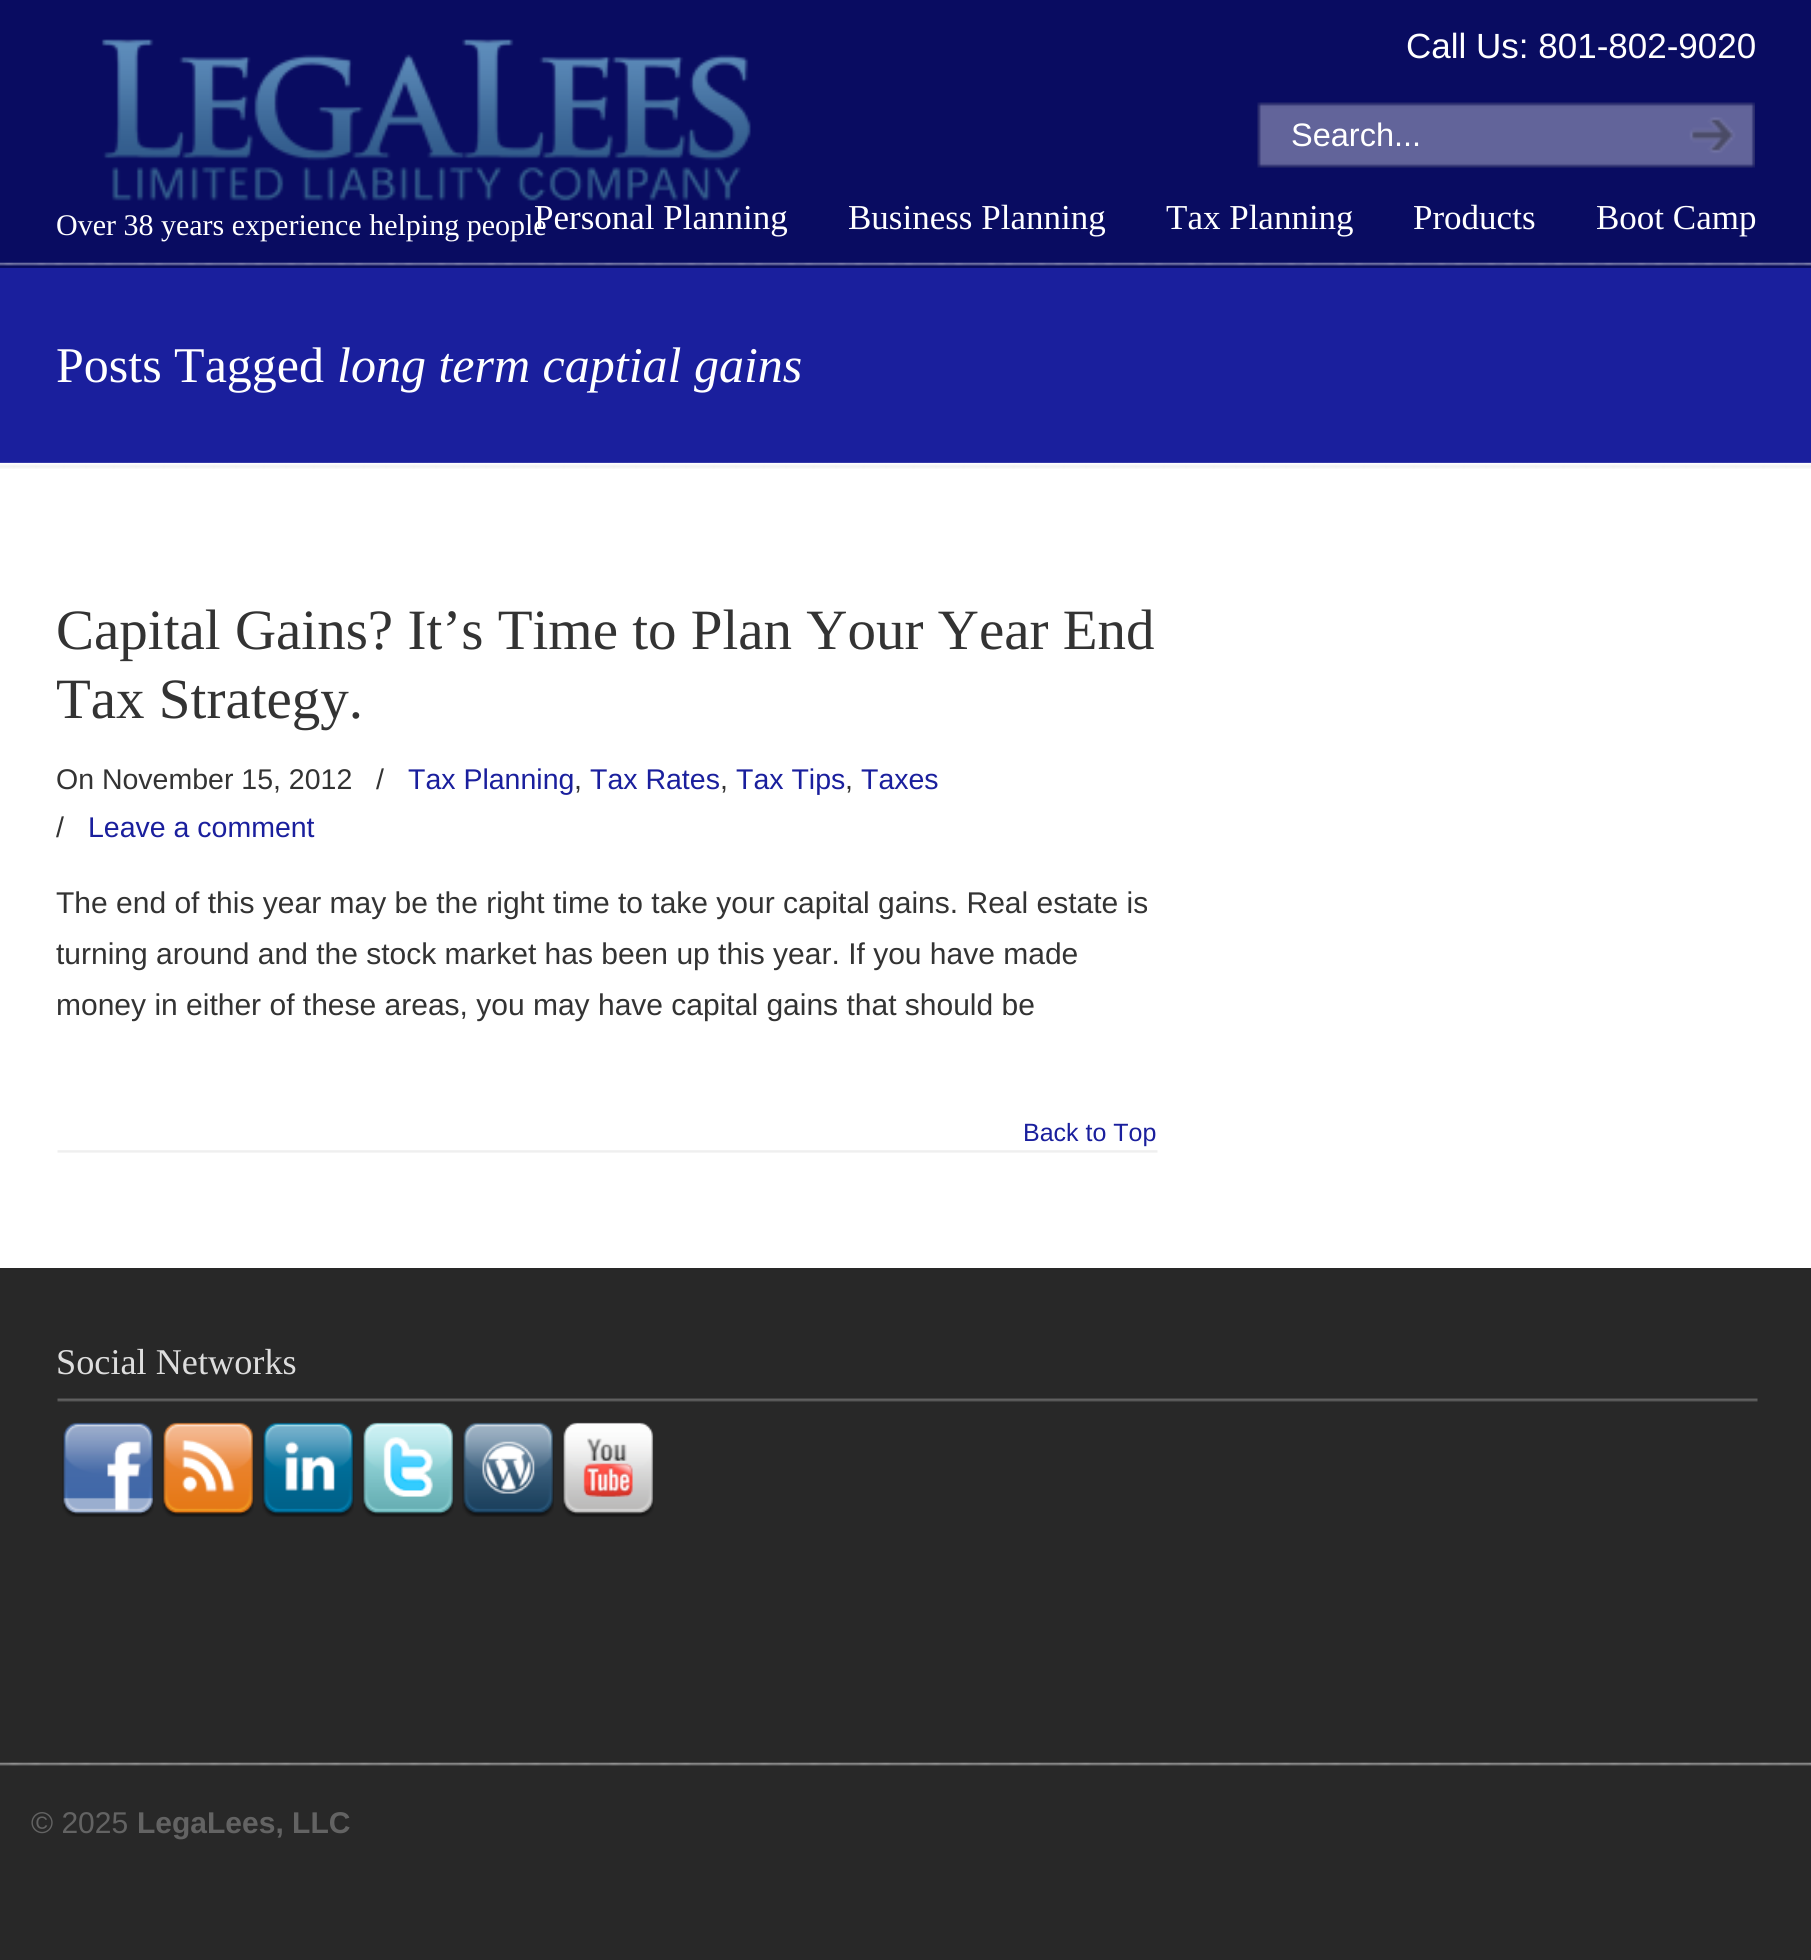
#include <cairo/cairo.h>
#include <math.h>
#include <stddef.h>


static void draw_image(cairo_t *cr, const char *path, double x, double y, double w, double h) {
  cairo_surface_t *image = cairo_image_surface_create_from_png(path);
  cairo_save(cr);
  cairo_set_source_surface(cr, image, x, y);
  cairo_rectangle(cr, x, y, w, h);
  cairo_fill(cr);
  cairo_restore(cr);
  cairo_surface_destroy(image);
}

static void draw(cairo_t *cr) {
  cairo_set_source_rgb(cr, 40 / 255.0, 40 / 255.0, 40 / 255.0);
  cairo_paint(cr);
  cairo_set_source_rgb(cr, 9 / 255.0, 12 / 255.0, 97 / 255.0);
  cairo_rectangle(cr, 0, 0, 1811, 268);
  cairo_fill(cr);
  draw_image(cr, "images/1.png", 101, 39, 650, 162);
  draw_image(cr, "images/2.png", 1257, 102, 398, 66);
  draw_image(cr, "images/3.png", 1655, 102, 100, 66);
  draw_image(cr, "images/4.png", 0, 262, 1811, 5);
  cairo_set_source_rgb(cr, 26 / 255.0, 31 / 255.0, 157 / 255.0);
  cairo_rectangle(cr, 0, 268, 1811, 195);
  cairo_fill(cr);
  cairo_set_source_rgb(cr, 1, 1, 1);
  cairo_rectangle(cr, 0, 463, 1811, 805);
  cairo_fill(cr);
  draw_image(cr, "images/5.png", 0, 462, 1811, 7);
  draw_image(cr, "images/6.png", 57, 1150, 1101, 3);
  draw_image(cr, "images/7.png", 57, 1398, 1701, 4);
  draw_image(cr, "images/8.png", 62, 1422, 92, 95);
  draw_image(cr, "images/9.png", 162, 1422, 92, 95);
  draw_image(cr, "images/10.png", 262, 1422, 92, 95);
  draw_image(cr, "images/11.png", 362, 1422, 92, 95);
  draw_image(cr, "images/12.png", 462, 1422, 92, 95);
  draw_image(cr, "images/13.png", 562, 1422, 92, 95);
  draw_image(cr, "images/14.png", 0, 1762, 1811, 4);
  cairo_select_font_face(cr, "Liberation Sans", CAIRO_FONT_SLANT_NORMAL, CAIRO_FONT_WEIGHT_NORMAL);
  cairo_set_font_size(cr, 32.5);
  cairo_move_to(cr, 1291, 146);
  cairo_show_text(cr, "Search...");
  cairo_set_font_size(cr, 35);
  cairo_move_to(cr, 1406, 58);
  cairo_show_text(cr, "Call Us: 801-802-9020");
  cairo_select_font_face(cr, "Liberation Serif", CAIRO_FONT_SLANT_NORMAL, CAIRO_FONT_WEIGHT_NORMAL);
  cairo_set_font_size(cr, 30);
  cairo_move_to(cr, 56, 235);
  cairo_show_text(cr, "Over 38 years experience helping people");
  cairo_set_font_size(cr, 35);
  cairo_move_to(cr, 534, 229);
  cairo_show_text(cr, "Personal Planning");
  cairo_move_to(cr, 848, 229);
  cairo_show_text(cr, "Business Planning");
  cairo_move_to(cr, 1166, 229);
  cairo_show_text(cr, "Tax Planning");
  cairo_move_to(cr, 1413, 229);
  cairo_show_text(cr, "Products");
  cairo_move_to(cr, 1596, 229);
  cairo_show_text(cr, "Boot Camp");
  cairo_set_font_size(cr, 50);
  cairo_move_to(cr, 56, 382);
  cairo_show_text(cr, "Posts Tagged");
  cairo_select_font_face(cr, "Liberation Serif", CAIRO_FONT_SLANT_ITALIC, CAIRO_FONT_WEIGHT_NORMAL);
  cairo_move_to(cr, 337, 382);
  cairo_show_text(cr, "long term captial gains");
  cairo_select_font_face(cr, "Liberation Serif", CAIRO_FONT_SLANT_NORMAL, CAIRO_FONT_WEIGHT_NORMAL);
  cairo_set_font_size(cr, 57);
  cairo_set_source_rgb(cr, 51 / 255.0, 51 / 255.0, 51 / 255.0);
  cairo_move_to(cr, 56, 649);
  cairo_show_text(cr, "Capital Gains? It’s Time to Plan Your Year End");
  cairo_move_to(cr, 56, 718);
  cairo_show_text(cr, "Tax Strategy.");
  cairo_select_font_face(cr, "Liberation Sans", CAIRO_FONT_SLANT_NORMAL, CAIRO_FONT_WEIGHT_NORMAL);
  cairo_set_font_size(cr, 28.5);
  cairo_move_to(cr, 56, 789);
  cairo_show_text(cr, "On November 15, 2012");
  cairo_move_to(cr, 376, 789);
  cairo_show_text(cr, "/");
  cairo_set_source_rgb(cr, 26 / 255.0, 31 / 255.0, 157 / 255.0);
  cairo_move_to(cr, 408, 789);
  cairo_show_text(cr, "Tax Planning");
  cairo_set_source_rgb(cr, 51 / 255.0, 51 / 255.0, 51 / 255.0);
  cairo_move_to(cr, 574, 789);
  cairo_show_text(cr, ",");
  cairo_set_source_rgb(cr, 26 / 255.0, 31 / 255.0, 157 / 255.0);
  cairo_move_to(cr, 590, 789);
  cairo_show_text(cr, "Tax Rates");
  cairo_set_source_rgb(cr, 51 / 255.0, 51 / 255.0, 51 / 255.0);
  cairo_move_to(cr, 720, 789);
  cairo_show_text(cr, ",");
  cairo_set_source_rgb(cr, 26 / 255.0, 31 / 255.0, 157 / 255.0);
  cairo_move_to(cr, 736, 789);
  cairo_show_text(cr, "Tax Tips");
  cairo_set_source_rgb(cr, 51 / 255.0, 51 / 255.0, 51 / 255.0);
  cairo_move_to(cr, 845, 789);
  cairo_show_text(cr, ",");
  cairo_set_source_rgb(cr, 26 / 255.0, 31 / 255.0, 157 / 255.0);
  cairo_move_to(cr, 861, 789);
  cairo_show_text(cr, "Taxes");
  cairo_set_source_rgb(cr, 51 / 255.0, 51 / 255.0, 51 / 255.0);
  cairo_move_to(cr, 56, 837);
  cairo_show_text(cr, "/");
  cairo_set_source_rgb(cr, 26 / 255.0, 31 / 255.0, 157 / 255.0);
  cairo_move_to(cr, 88, 837);
  cairo_show_text(cr, "Leave a comment");
  cairo_set_font_size(cr, 30);
  cairo_set_source_rgb(cr, 51 / 255.0, 51 / 255.0, 51 / 255.0);
  cairo_move_to(cr, 56, 913);
  cairo_show_text(cr, "The end of this year may be the right time to take your capital gains. Real estate is");
  cairo_move_to(cr, 56, 964);
  cairo_show_text(cr, "turning around and the stock market has been up this year. If you have made");
  cairo_move_to(cr, 56, 1015);
  cairo_show_text(cr, "money in either of these areas, you may have capital gains that should be");
  cairo_set_font_size(cr, 25);
  cairo_set_source_rgb(cr, 26 / 255.0, 31 / 255.0, 157 / 255.0);
  cairo_move_to(cr, 1023, 1141);
  cairo_show_text(cr, "Back to Top");
  cairo_select_font_face(cr, "Liberation Serif", CAIRO_FONT_SLANT_NORMAL, CAIRO_FONT_WEIGHT_NORMAL);
  cairo_set_font_size(cr, 36.25);
  cairo_set_source_rgb(cr, 221 / 255.0, 221 / 255.0, 221 / 255.0);
  cairo_move_to(cr, 56, 1374);
  cairo_show_text(cr, "Social Networks");
  cairo_select_font_face(cr, "Liberation Sans", CAIRO_FONT_SLANT_NORMAL, CAIRO_FONT_WEIGHT_NORMAL);
  cairo_set_font_size(cr, 30);
  cairo_set_source_rgb(cr, 99 / 255.0, 99 / 255.0, 99 / 255.0);
  cairo_move_to(cr, 31, 1833);
  cairo_show_text(cr, "© 2025");
  cairo_select_font_face(cr, "Liberation Sans", CAIRO_FONT_SLANT_NORMAL, CAIRO_FONT_WEIGHT_BOLD);
  cairo_move_to(cr, 137, 1833);
  cairo_show_text(cr, "LegaLees, LLC");
}

int main(void) {
  cairo_surface_t *surface = cairo_image_surface_create(CAIRO_FORMAT_RGB24, 1811, 1960);
  cairo_t *cr = cairo_create(surface);
  cairo_font_options_t *options = cairo_font_options_create();
  cairo_font_options_set_hint_metrics(options, CAIRO_HINT_METRICS_OFF);
  cairo_font_options_set_hint_style(options, CAIRO_HINT_STYLE_NONE);
  cairo_set_font_options(cr, options);
  cairo_set_miter_limit(cr, 4);
  draw(cr);
  cairo_surface_write_to_png(surface, "out.png");
  cairo_font_options_destroy(options);
  cairo_destroy(cr);
  cairo_surface_destroy(surface);
  return 0;
}
